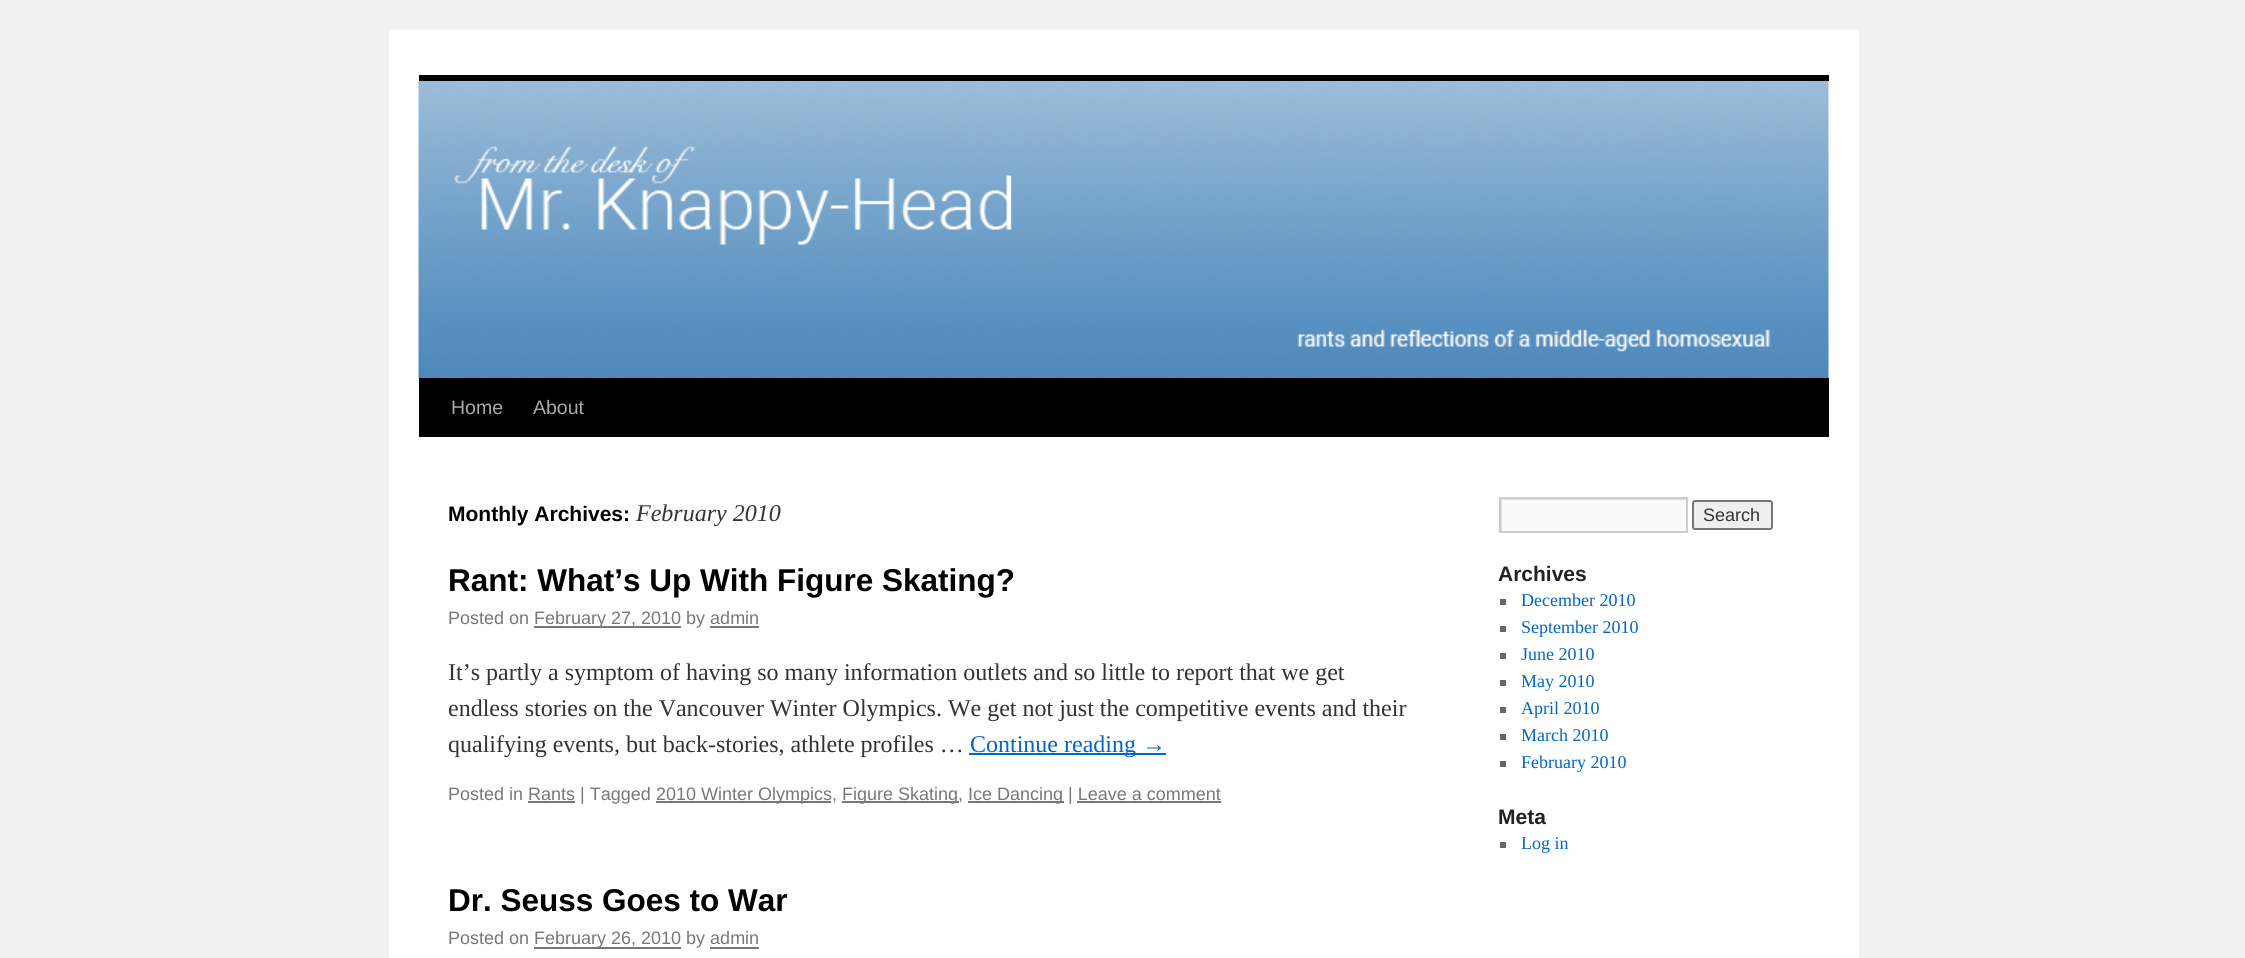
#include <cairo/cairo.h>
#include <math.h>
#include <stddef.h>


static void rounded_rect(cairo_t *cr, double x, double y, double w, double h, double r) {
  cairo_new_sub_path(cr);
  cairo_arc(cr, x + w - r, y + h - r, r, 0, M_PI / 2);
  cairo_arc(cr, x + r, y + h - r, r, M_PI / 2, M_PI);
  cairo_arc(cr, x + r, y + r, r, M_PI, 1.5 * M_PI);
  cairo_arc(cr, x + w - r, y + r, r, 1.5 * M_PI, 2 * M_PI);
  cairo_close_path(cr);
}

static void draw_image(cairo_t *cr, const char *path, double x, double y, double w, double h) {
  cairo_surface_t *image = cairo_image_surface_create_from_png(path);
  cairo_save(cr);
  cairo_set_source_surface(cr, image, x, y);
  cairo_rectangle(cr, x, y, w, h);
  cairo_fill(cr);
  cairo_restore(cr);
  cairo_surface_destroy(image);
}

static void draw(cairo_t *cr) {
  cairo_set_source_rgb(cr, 241 / 255.0, 241 / 255.0, 241 / 255.0);
  cairo_paint(cr);
  cairo_set_source_rgb(cr, 1, 1, 1);
  cairo_rectangle(cr, 389, 30, 1470, 928);
  cairo_fill(cr);
  cairo_set_source_rgb(cr, 0, 0, 0);
  cairo_rectangle(cr, 419, 75, 1410, 6);
  cairo_fill(cr);
  cairo_rectangle(cr, 419, 378, 1410, 59);
  cairo_fill(cr);
  draw_image(cr, "images/1.png", 418, 81, 1411, 297);
  cairo_set_source_rgb(cr, 119 / 255.0, 119 / 255.0, 119 / 255.0);
  cairo_rectangle(cr, 534, 626, 147, 2);
  cairo_fill(cr);
  cairo_rectangle(cr, 710, 626, 49, 2);
  cairo_fill(cr);
  cairo_set_source_rgb(cr, 0, 102 / 255.0, 204 / 255.0);
  cairo_rectangle(cr, 969, 753, 197, 2);
  cairo_fill(cr);
  cairo_set_source_rgb(cr, 119 / 255.0, 119 / 255.0, 119 / 255.0);
  cairo_rectangle(cr, 528, 801, 47, 2);
  cairo_fill(cr);
  cairo_rectangle(cr, 656, 801, 175, 2);
  cairo_fill(cr);
  cairo_rectangle(cr, 842, 801, 117, 2);
  cairo_fill(cr);
  cairo_rectangle(cr, 968, 801, 96, 2);
  cairo_fill(cr);
  cairo_rectangle(cr, 1077, 801, 144, 2);
  cairo_fill(cr);
  cairo_rectangle(cr, 534, 947, 147, 2);
  cairo_fill(cr);
  cairo_rectangle(cr, 710, 947, 49, 2);
  cairo_fill(cr);
  cairo_set_source_rgb(cr, 249 / 255.0, 249 / 255.0, 249 / 255.0);
  cairo_rectangle(cr, 1502, 500, 184, 31);
  cairo_fill(cr);
  cairo_save(cr);
  cairo_rectangle(cr, 1500, 498, 186, 33);
  cairo_clip(cr);
  cairo_set_source_rgb(cr, 224 / 255.0, 224 / 255.0, 224 / 255.0);
  cairo_set_fill_rule(cr, CAIRO_FILL_RULE_EVEN_ODD);
  cairo_new_path(cr);
  cairo_move_to(cr, 1352, 350);
  cairo_line_to(cr, 1834, 350);
  cairo_line_to(cr, 1834, 680);
  cairo_line_to(cr, 1352, 680);
  cairo_close_path(cr);
  cairo_move_to(cr, 1502, 500);
  cairo_line_to(cr, 1688, 500);
  cairo_line_to(cr, 1688, 532);
  cairo_line_to(cr, 1502, 532);
  cairo_close_path(cr);
  cairo_fill(cr);
  cairo_restore(cr);
  cairo_rectangle(cr, 1500, 498, 187, 34);
  cairo_set_source_rgb(cr, 204 / 255.0, 204 / 255.0, 204 / 255.0);
  cairo_stroke(cr);
  cairo_set_source_rgb(cr, 239 / 255.0, 239 / 255.0, 239 / 255.0);
  rounded_rect(cr, 1693, 501, 79, 28, 2);
  cairo_fill_preserve(cr);
  cairo_set_source_rgb(cr, 118 / 255.0, 118 / 255.0, 118 / 255.0);
  cairo_stroke(cr);
  cairo_set_source_rgb(cr, 102 / 255.0, 102 / 255.0, 102 / 255.0);
  cairo_rectangle(cr, 1500, 599, 6, 6);
  cairo_fill(cr);
  cairo_rectangle(cr, 1500, 626, 6, 6);
  cairo_fill(cr);
  cairo_rectangle(cr, 1500, 653, 6, 6);
  cairo_fill(cr);
  cairo_rectangle(cr, 1500, 680, 6, 6);
  cairo_fill(cr);
  cairo_rectangle(cr, 1500, 707, 6, 6);
  cairo_fill(cr);
  cairo_rectangle(cr, 1500, 734, 6, 6);
  cairo_fill(cr);
  cairo_rectangle(cr, 1500, 761, 6, 6);
  cairo_fill(cr);
  cairo_rectangle(cr, 1500, 842, 6, 6);
  cairo_fill(cr);
  cairo_select_font_face(cr, "Liberation Sans", CAIRO_FONT_SLANT_NORMAL, CAIRO_FONT_WEIGHT_NORMAL);
  cairo_set_font_size(cr, 19.5);
  cairo_set_source_rgb(cr, 170 / 255.0, 170 / 255.0, 170 / 255.0);
  cairo_move_to(cr, 451, 414);
  cairo_show_text(cr, "Home");
  cairo_move_to(cr, 533, 414);
  cairo_show_text(cr, "About");
  cairo_select_font_face(cr, "Liberation Sans", CAIRO_FONT_SLANT_NORMAL, CAIRO_FONT_WEIGHT_BOLD);
  cairo_set_font_size(cr, 21);
  cairo_set_source_rgb(cr, 0, 0, 0);
  cairo_move_to(cr, 448, 521);
  cairo_show_text(cr, "Monthly Archives:");
  cairo_select_font_face(cr, "Liberation Serif", CAIRO_FONT_SLANT_ITALIC, CAIRO_FONT_WEIGHT_NORMAL);
  cairo_set_font_size(cr, 24);
  cairo_set_source_rgb(cr, 51 / 255.0, 51 / 255.0, 51 / 255.0);
  cairo_move_to(cr, 636, 521);
  cairo_show_text(cr, "February 2010");
  cairo_select_font_face(cr, "Liberation Sans", CAIRO_FONT_SLANT_NORMAL, CAIRO_FONT_WEIGHT_BOLD);
  cairo_set_font_size(cr, 31.5);
  cairo_set_source_rgb(cr, 0, 0, 0);
  cairo_move_to(cr, 448, 591);
  cairo_show_text(cr, "Rant: What’s Up With Figure Skating?");
  cairo_select_font_face(cr, "Liberation Sans", CAIRO_FONT_SLANT_NORMAL, CAIRO_FONT_WEIGHT_NORMAL);
  cairo_set_font_size(cr, 18);
  cairo_set_source_rgb(cr, 119 / 255.0, 119 / 255.0, 119 / 255.0);
  cairo_move_to(cr, 448, 624);
  cairo_show_text(cr, "Posted on");
  cairo_move_to(cr, 534, 624);
  cairo_show_text(cr, "February 27, 2010 by admin");
  cairo_select_font_face(cr, "Liberation Serif", CAIRO_FONT_SLANT_NORMAL, CAIRO_FONT_WEIGHT_NORMAL);
  cairo_set_font_size(cr, 24);
  cairo_set_source_rgb(cr, 51 / 255.0, 51 / 255.0, 51 / 255.0);
  cairo_move_to(cr, 448, 680);
  cairo_show_text(cr, "It’s partly a symptom of having so many information outlets and so little to report that we get");
  cairo_move_to(cr, 448, 716);
  cairo_show_text(cr, "endless stories on the Vancouver Winter Olympics. We get not just the competitive events and their");
  cairo_move_to(cr, 448, 752);
  cairo_show_text(cr, "qualifying events, but back-stories, athlete profiles …");
  cairo_set_source_rgb(cr, 0, 102 / 255.0, 204 / 255.0);
  cairo_move_to(cr, 970, 752);
  cairo_show_text(cr, "Continue reading →");
  cairo_select_font_face(cr, "Liberation Sans", CAIRO_FONT_SLANT_NORMAL, CAIRO_FONT_WEIGHT_NORMAL);
  cairo_set_font_size(cr, 18);
  cairo_set_source_rgb(cr, 119 / 255.0, 119 / 255.0, 119 / 255.0);
  cairo_move_to(cr, 448, 800);
  cairo_show_text(cr, "Posted in Rants | Tagged");
  cairo_move_to(cr, 656, 800);
  cairo_show_text(cr, "2010 Winter Olympics,");
  cairo_move_to(cr, 842, 800);
  cairo_show_text(cr, "Figure Skating,");
  cairo_move_to(cr, 968, 800);
  cairo_show_text(cr, "Ice Dancing | Leave a comment");
  cairo_select_font_face(cr, "Liberation Sans", CAIRO_FONT_SLANT_NORMAL, CAIRO_FONT_WEIGHT_BOLD);
  cairo_set_font_size(cr, 31.5);
  cairo_set_source_rgb(cr, 0, 0, 0);
  cairo_move_to(cr, 448, 911);
  cairo_show_text(cr, "Dr. Seuss Goes to War");
  cairo_select_font_face(cr, "Liberation Sans", CAIRO_FONT_SLANT_NORMAL, CAIRO_FONT_WEIGHT_NORMAL);
  cairo_set_font_size(cr, 18);
  cairo_set_source_rgb(cr, 119 / 255.0, 119 / 255.0, 119 / 255.0);
  cairo_move_to(cr, 448, 944);
  cairo_show_text(cr, "Posted on");
  cairo_move_to(cr, 534, 944);
  cairo_show_text(cr, "February 26, 2010 by admin");
  cairo_set_source_rgb(cr, 51 / 255.0, 51 / 255.0, 51 / 255.0);
  cairo_move_to(cr, 1703, 521);
  cairo_show_text(cr, "Search");
  cairo_select_font_face(cr, "Liberation Sans", CAIRO_FONT_SLANT_NORMAL, CAIRO_FONT_WEIGHT_BOLD);
  cairo_set_font_size(cr, 21);
  cairo_set_source_rgb(cr, 34 / 255.0, 34 / 255.0, 34 / 255.0);
  cairo_move_to(cr, 1498, 581);
  cairo_show_text(cr, "Archives");
  cairo_select_font_face(cr, "Liberation Serif", CAIRO_FONT_SLANT_NORMAL, CAIRO_FONT_WEIGHT_NORMAL);
  cairo_set_font_size(cr, 18);
  cairo_set_source_rgb(cr, 0, 102 / 255.0, 204 / 255.0);
  cairo_move_to(cr, 1521, 606);
  cairo_show_text(cr, "December 2010");
  cairo_move_to(cr, 1521, 633);
  cairo_show_text(cr, "September 2010");
  cairo_move_to(cr, 1521, 660);
  cairo_show_text(cr, "June 2010");
  cairo_move_to(cr, 1521, 687);
  cairo_show_text(cr, "May 2010");
  cairo_move_to(cr, 1521, 714);
  cairo_show_text(cr, "April 2010");
  cairo_move_to(cr, 1521, 741);
  cairo_show_text(cr, "March 2010");
  cairo_move_to(cr, 1521, 768);
  cairo_show_text(cr, "February 2010");
  cairo_select_font_face(cr, "Liberation Sans", CAIRO_FONT_SLANT_NORMAL, CAIRO_FONT_WEIGHT_BOLD);
  cairo_set_font_size(cr, 21);
  cairo_set_source_rgb(cr, 34 / 255.0, 34 / 255.0, 34 / 255.0);
  cairo_move_to(cr, 1498, 824);
  cairo_show_text(cr, "Meta");
  cairo_select_font_face(cr, "Liberation Serif", CAIRO_FONT_SLANT_NORMAL, CAIRO_FONT_WEIGHT_NORMAL);
  cairo_set_font_size(cr, 18);
  cairo_set_source_rgb(cr, 0, 102 / 255.0, 204 / 255.0);
  cairo_move_to(cr, 1521, 849);
  cairo_show_text(cr, "Log in");
}

int main(void) {
  cairo_surface_t *surface = cairo_image_surface_create(CAIRO_FORMAT_RGB24, 2245, 958);
  cairo_t *cr = cairo_create(surface);
  cairo_font_options_t *options = cairo_font_options_create();
  cairo_font_options_set_hint_metrics(options, CAIRO_HINT_METRICS_OFF);
  cairo_font_options_set_hint_style(options, CAIRO_HINT_STYLE_NONE);
  cairo_set_font_options(cr, options);
  cairo_set_miter_limit(cr, 4);
  draw(cr);
  cairo_surface_write_to_png(surface, "out.png");
  cairo_font_options_destroy(options);
  cairo_destroy(cr);
  cairo_surface_destroy(surface);
  return 0;
}
